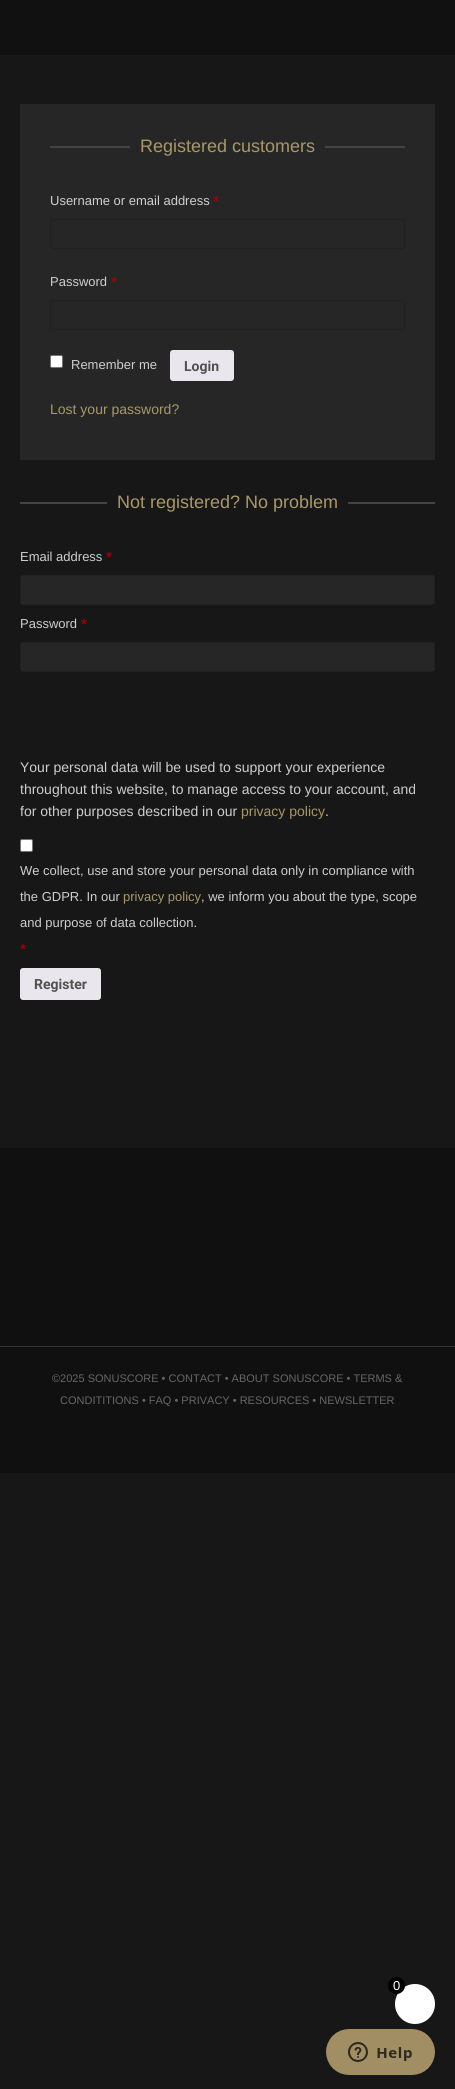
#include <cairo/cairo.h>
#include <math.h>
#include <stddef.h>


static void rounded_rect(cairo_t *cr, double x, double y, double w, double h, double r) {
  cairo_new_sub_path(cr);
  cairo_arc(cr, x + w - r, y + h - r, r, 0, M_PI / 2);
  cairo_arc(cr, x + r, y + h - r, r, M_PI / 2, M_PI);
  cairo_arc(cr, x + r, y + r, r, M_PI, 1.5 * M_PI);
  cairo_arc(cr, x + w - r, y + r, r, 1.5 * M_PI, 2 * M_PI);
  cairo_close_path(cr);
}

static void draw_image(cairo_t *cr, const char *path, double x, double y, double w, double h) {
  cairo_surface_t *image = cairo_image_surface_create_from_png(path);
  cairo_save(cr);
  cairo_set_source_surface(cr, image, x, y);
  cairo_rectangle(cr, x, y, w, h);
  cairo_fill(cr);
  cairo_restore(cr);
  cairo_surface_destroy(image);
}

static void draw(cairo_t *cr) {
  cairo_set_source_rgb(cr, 23 / 255.0, 23 / 255.0, 23 / 255.0);
  cairo_paint(cr);
  cairo_set_source_rgb(cr, 17 / 255.0, 17 / 255.0, 17 / 255.0);
  cairo_rectangle(cr, 0, 0, 455, 55);
  cairo_fill(cr);
  cairo_set_source_rgb(cr, 38 / 255.0, 38 / 255.0, 38 / 255.0);
  cairo_rectangle(cr, 20, 104, 415, 356);
  cairo_fill(cr);
  cairo_set_source_rgb(cr, 68 / 255.0, 68 / 255.0, 68 / 255.0);
  cairo_rectangle(cr, 50, 146, 355, 2);
  cairo_fill(cr);
  cairo_set_source_rgb(cr, 38 / 255.0, 38 / 255.0, 38 / 255.0);
  cairo_rectangle(cr, 130, 146, 195, 2);
  cairo_fill(cr);
  rounded_rect(cr, 50.5, 219.5, 354, 29, 2.5);
  cairo_set_source_rgb(cr, 33 / 255.0, 33 / 255.0, 33 / 255.0);
  cairo_set_line_width(cr, 1);
  cairo_stroke(cr);
  rounded_rect(cr, 50.5, 300.5, 354, 29, 2.5);
  cairo_stroke(cr);
  cairo_set_source_rgb(cr, 1, 1, 1);
  rounded_rect(cr, 50.5, 355.5, 12, 12, 1.5);
  cairo_fill_preserve(cr);
  cairo_set_source_rgb(cr, 118 / 255.0, 118 / 255.0, 118 / 255.0);
  cairo_stroke(cr);
  cairo_set_source_rgb(cr, 233 / 255.0, 230 / 255.0, 237 / 255.0);
  rounded_rect(cr, 170, 350, 64, 31, 3);
  cairo_fill(cr);
  cairo_set_source_rgb(cr, 68 / 255.0, 68 / 255.0, 68 / 255.0);
  cairo_rectangle(cr, 20, 502, 415, 2);
  cairo_fill(cr);
  cairo_set_source_rgb(cr, 23 / 255.0, 23 / 255.0, 23 / 255.0);
  cairo_rectangle(cr, 107, 502, 241, 2);
  cairo_fill(cr);
  cairo_set_source_rgb(cr, 38 / 255.0, 38 / 255.0, 38 / 255.0);
  rounded_rect(cr, 20.5, 575.5, 414, 29, 2.5);
  cairo_fill_preserve(cr);
  cairo_set_source_rgb(cr, 33 / 255.0, 33 / 255.0, 33 / 255.0);
  cairo_stroke(cr);
  cairo_set_source_rgb(cr, 38 / 255.0, 38 / 255.0, 38 / 255.0);
  rounded_rect(cr, 20.5, 642.5, 414, 29, 2.5);
  cairo_fill_preserve(cr);
  cairo_set_source_rgb(cr, 33 / 255.0, 33 / 255.0, 33 / 255.0);
  cairo_stroke(cr);
  cairo_set_source_rgb(cr, 1, 1, 1);
  rounded_rect(cr, 20.5, 839.5, 12, 12, 1.5);
  cairo_fill_preserve(cr);
  cairo_set_source_rgb(cr, 118 / 255.0, 118 / 255.0, 118 / 255.0);
  cairo_stroke(cr);
  cairo_set_source_rgb(cr, 233 / 255.0, 230 / 255.0, 237 / 255.0);
  rounded_rect(cr, 20, 968, 81, 32, 3);
  cairo_fill(cr);
  cairo_set_source_rgb(cr, 16 / 255.0, 16 / 255.0, 16 / 255.0);
  cairo_rectangle(cr, 0, 1148, 455, 198);
  cairo_fill(cr);
  cairo_rectangle(cr, 0, 1347, 455, 126);
  cairo_fill(cr);
  cairo_set_source_rgb(cr, 51 / 255.0, 51 / 255.0, 51 / 255.0);
  cairo_rectangle(cr, 0, 1346, 455, 1);
  cairo_fill(cr);
  cairo_set_source_rgb(cr, 1, 1, 1);
  cairo_arc(cr, 415, 2004, 20, 0, 2 * M_PI);
  cairo_fill(cr);
  cairo_set_source_rgb(cr, 0, 0, 0);
  cairo_arc(cr, 396.5, 1985.5, 8.5, 0, 2 * M_PI);
  cairo_fill(cr);
  draw_image(cr, "images/1.png", 326, 2029, 109, 46);
  cairo_select_font_face(cr, "Liberation Sans", CAIRO_FONT_SLANT_NORMAL, CAIRO_FONT_WEIGHT_NORMAL);
  cairo_set_font_size(cr, 18);
  cairo_set_source_rgb(cr, 168 / 255.0, 152 / 255.0, 104 / 255.0);
  cairo_move_to(cr, 140, 152);
  cairo_show_text(cr, "Registered customers");
  cairo_set_font_size(cr, 13);
  cairo_set_source_rgb(cr, 206 / 255.0, 206 / 255.0, 206 / 255.0);
  cairo_move_to(cr, 50, 205);
  cairo_show_text(cr, "Username or email address");
  cairo_select_font_face(cr, "Roboto", CAIRO_FONT_SLANT_NORMAL, CAIRO_FONT_WEIGHT_BOLD);
  cairo_set_source_rgb(cr, 170 / 255.0, 0, 0);
  cairo_move_to(cr, 213, 205);
  cairo_show_text(cr, "*");
  cairo_select_font_face(cr, "Liberation Sans", CAIRO_FONT_SLANT_NORMAL, CAIRO_FONT_WEIGHT_NORMAL);
  cairo_set_source_rgb(cr, 206 / 255.0, 206 / 255.0, 206 / 255.0);
  cairo_move_to(cr, 50, 286);
  cairo_show_text(cr, "Password");
  cairo_select_font_face(cr, "Roboto", CAIRO_FONT_SLANT_NORMAL, CAIRO_FONT_WEIGHT_BOLD);
  cairo_set_source_rgb(cr, 170 / 255.0, 0, 0);
  cairo_move_to(cr, 111, 286);
  cairo_show_text(cr, "*");
  cairo_select_font_face(cr, "Liberation Sans", CAIRO_FONT_SLANT_NORMAL, CAIRO_FONT_WEIGHT_NORMAL);
  cairo_set_source_rgb(cr, 206 / 255.0, 206 / 255.0, 206 / 255.0);
  cairo_move_to(cr, 71, 369);
  cairo_show_text(cr, "Remember me");
  cairo_select_font_face(cr, "Roboto", CAIRO_FONT_SLANT_NORMAL, CAIRO_FONT_WEIGHT_BOLD);
  cairo_set_font_size(cr, 14);
  cairo_set_source_rgb(cr, 81 / 255.0, 81 / 255.0, 81 / 255.0);
  cairo_move_to(cr, 184, 371);
  cairo_show_text(cr, "Login");
  cairo_select_font_face(cr, "Liberation Sans", CAIRO_FONT_SLANT_NORMAL, CAIRO_FONT_WEIGHT_NORMAL);
  cairo_set_source_rgb(cr, 168 / 255.0, 152 / 255.0, 104 / 255.0);
  cairo_move_to(cr, 50, 414);
  cairo_show_text(cr, "Lost your password?");
  cairo_set_font_size(cr, 18);
  cairo_move_to(cr, 117, 508);
  cairo_show_text(cr, "Not registered? No problem");
  cairo_set_font_size(cr, 13);
  cairo_set_source_rgb(cr, 206 / 255.0, 206 / 255.0, 206 / 255.0);
  cairo_move_to(cr, 20, 561);
  cairo_show_text(cr, "Email address");
  cairo_select_font_face(cr, "Roboto", CAIRO_FONT_SLANT_NORMAL, CAIRO_FONT_WEIGHT_BOLD);
  cairo_set_source_rgb(cr, 170 / 255.0, 0, 0);
  cairo_move_to(cr, 106, 561);
  cairo_show_text(cr, "*");
  cairo_select_font_face(cr, "Liberation Sans", CAIRO_FONT_SLANT_NORMAL, CAIRO_FONT_WEIGHT_NORMAL);
  cairo_set_source_rgb(cr, 206 / 255.0, 206 / 255.0, 206 / 255.0);
  cairo_move_to(cr, 20, 628);
  cairo_show_text(cr, "Password");
  cairo_select_font_face(cr, "Roboto", CAIRO_FONT_SLANT_NORMAL, CAIRO_FONT_WEIGHT_BOLD);
  cairo_set_source_rgb(cr, 170 / 255.0, 0, 0);
  cairo_move_to(cr, 81, 628);
  cairo_show_text(cr, "*");
  cairo_select_font_face(cr, "Liberation Sans", CAIRO_FONT_SLANT_NORMAL, CAIRO_FONT_WEIGHT_NORMAL);
  cairo_set_font_size(cr, 14);
  cairo_set_source_rgb(cr, 206 / 255.0, 206 / 255.0, 206 / 255.0);
  cairo_move_to(cr, 20, 772);
  cairo_show_text(cr, "Your personal data will be used to support your experience");
  cairo_move_to(cr, 20, 794);
  cairo_show_text(cr, "throughout this website, to manage access to your account, and");
  cairo_move_to(cr, 20, 816);
  cairo_show_text(cr, "for other purposes described in our");
  cairo_set_source_rgb(cr, 168 / 255.0, 152 / 255.0, 104 / 255.0);
  cairo_move_to(cr, 241, 816);
  cairo_show_text(cr, "privacy policy");
  cairo_set_source_rgb(cr, 206 / 255.0, 206 / 255.0, 206 / 255.0);
  cairo_move_to(cr, 325, 816);
  cairo_show_text(cr, ".");
  cairo_set_font_size(cr, 13);
  cairo_move_to(cr, 20, 875);
  cairo_show_text(cr, "We collect, use and store your personal data only in compliance with");
  cairo_move_to(cr, 20, 901);
  cairo_show_text(cr, "the GDPR. In our");
  cairo_set_source_rgb(cr, 168 / 255.0, 152 / 255.0, 104 / 255.0);
  cairo_move_to(cr, 123, 901);
  cairo_show_text(cr, "privacy policy");
  cairo_set_source_rgb(cr, 206 / 255.0, 206 / 255.0, 206 / 255.0);
  cairo_move_to(cr, 201, 901);
  cairo_show_text(cr, ", we inform you about the type, scope");
  cairo_move_to(cr, 20, 927);
  cairo_show_text(cr, "and purpose of data collection.");
  cairo_select_font_face(cr, "Roboto", CAIRO_FONT_SLANT_NORMAL, CAIRO_FONT_WEIGHT_BOLD);
  cairo_set_source_rgb(cr, 170 / 255.0, 0, 0);
  cairo_move_to(cr, 20, 953);
  cairo_show_text(cr, "*");
  cairo_set_font_size(cr, 14);
  cairo_set_source_rgb(cr, 81 / 255.0, 81 / 255.0, 81 / 255.0);
  cairo_move_to(cr, 34, 989);
  cairo_show_text(cr, "Register");
  cairo_select_font_face(cr, "Liberation Sans", CAIRO_FONT_SLANT_NORMAL, CAIRO_FONT_WEIGHT_NORMAL);
  cairo_set_font_size(cr, 11);
  cairo_set_source_rgb(cr, 102 / 255.0, 102 / 255.0, 102 / 255.0);
  cairo_move_to(cr, 52, 1382);
  cairo_show_text(cr, "©2025 SONUSCORE • CONTACT • ABOUT SONUSCORE • TERMS &");
  cairo_move_to(cr, 60, 1404);
  cairo_show_text(cr, "CONDITITIONS • FAQ • PRIVACY • RESOURCES • NEWSLETTER");
  cairo_set_font_size(cr, 13);
  cairo_set_source_rgb(cr, 1, 1, 1);
  cairo_move_to(cr, 393, 1990);
  cairo_show_text(cr, "0");
}

int main(void) {
  cairo_surface_t *surface = cairo_image_surface_create(CAIRO_FORMAT_RGB24, 455, 2089);
  cairo_t *cr = cairo_create(surface);
  cairo_font_options_t *options = cairo_font_options_create();
  cairo_font_options_set_hint_metrics(options, CAIRO_HINT_METRICS_OFF);
  cairo_font_options_set_hint_style(options, CAIRO_HINT_STYLE_NONE);
  cairo_set_font_options(cr, options);
  cairo_set_miter_limit(cr, 4);
  draw(cr);
  cairo_surface_write_to_png(surface, "out.png");
  cairo_font_options_destroy(options);
  cairo_destroy(cr);
  cairo_surface_destroy(surface);
  return 0;
}
